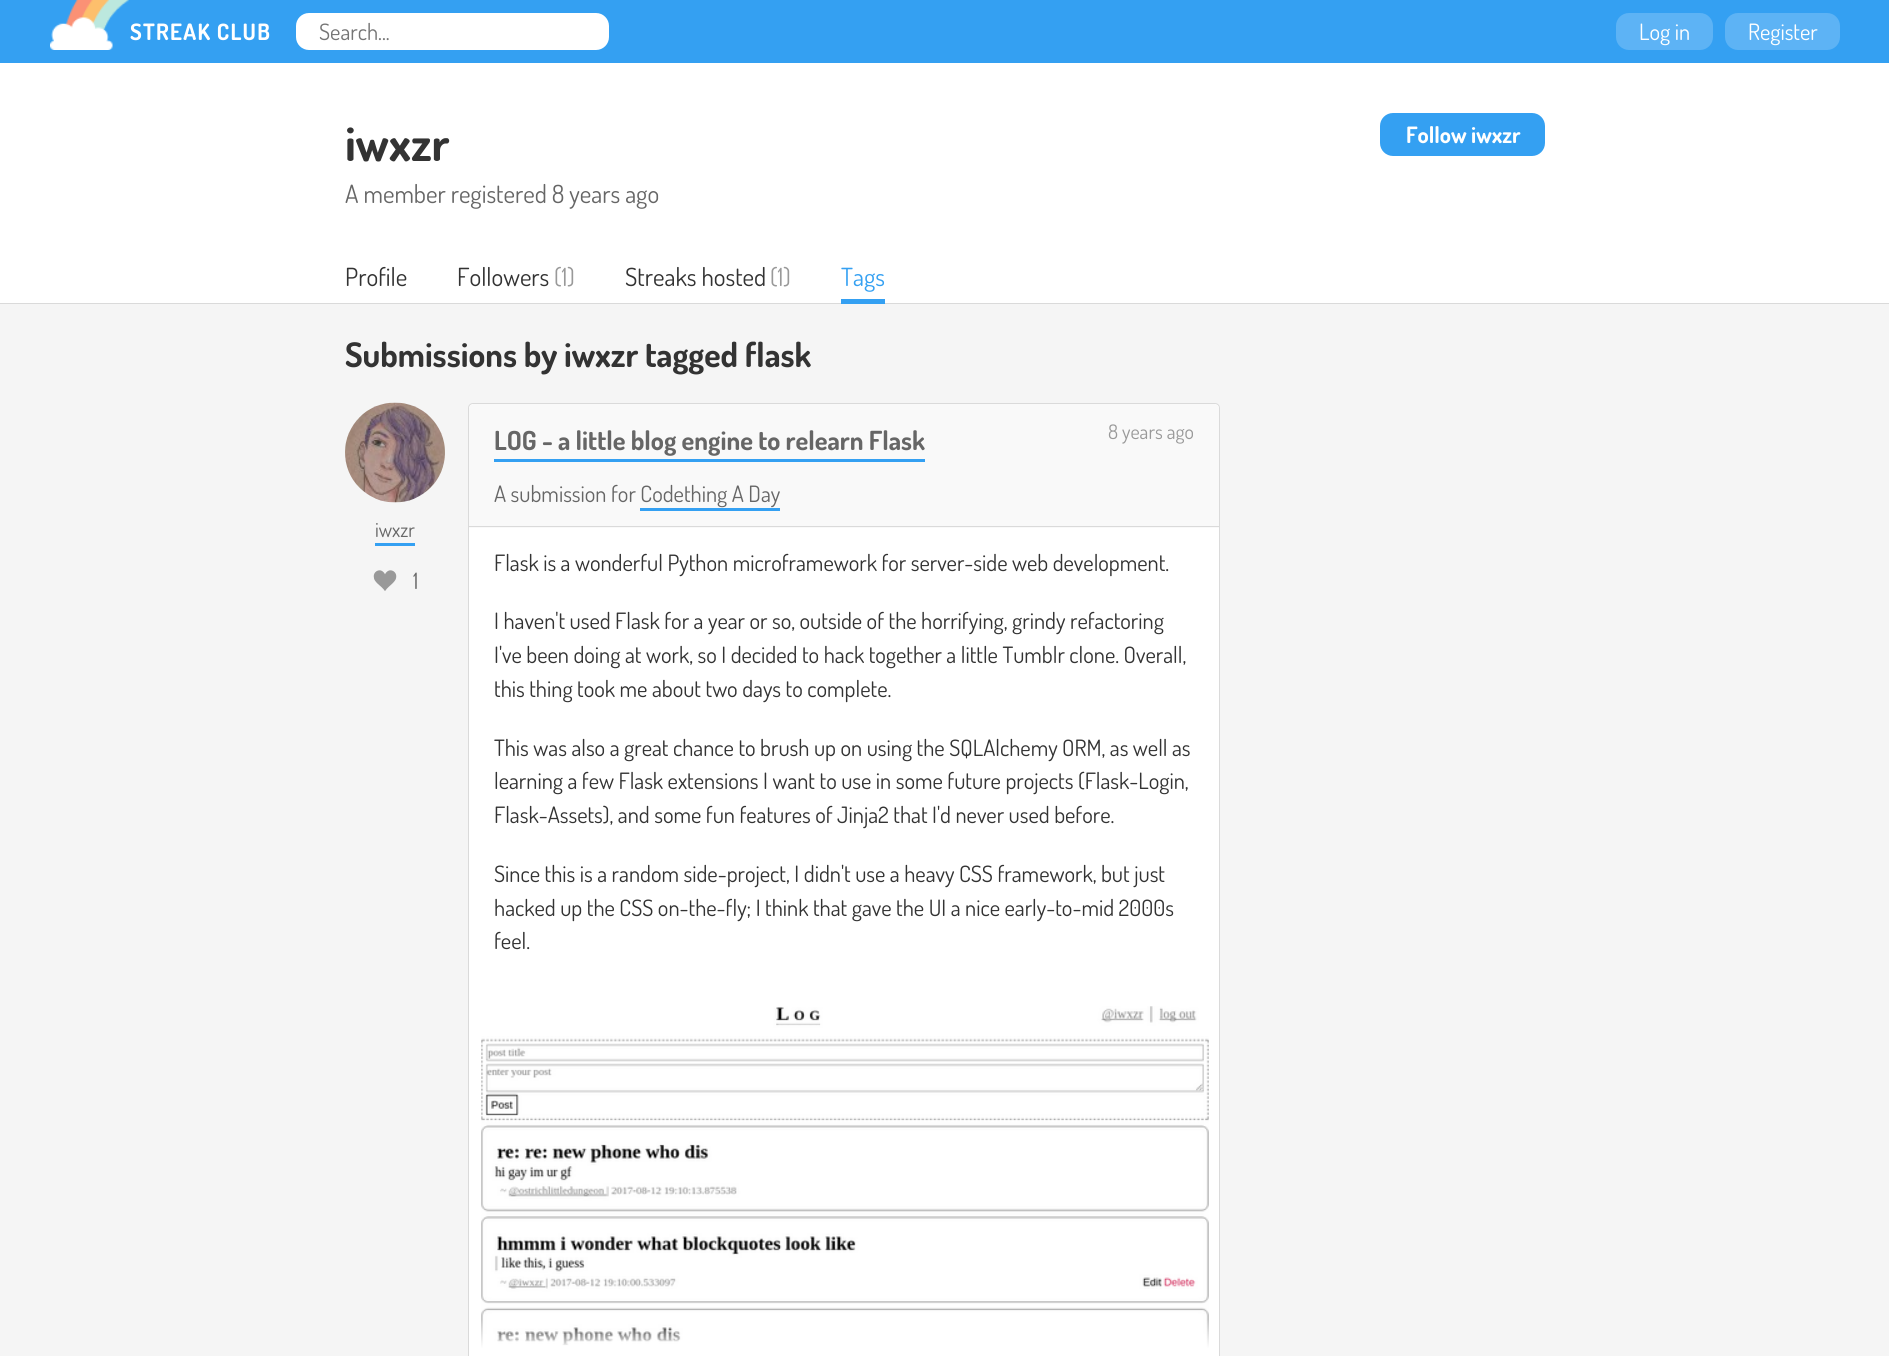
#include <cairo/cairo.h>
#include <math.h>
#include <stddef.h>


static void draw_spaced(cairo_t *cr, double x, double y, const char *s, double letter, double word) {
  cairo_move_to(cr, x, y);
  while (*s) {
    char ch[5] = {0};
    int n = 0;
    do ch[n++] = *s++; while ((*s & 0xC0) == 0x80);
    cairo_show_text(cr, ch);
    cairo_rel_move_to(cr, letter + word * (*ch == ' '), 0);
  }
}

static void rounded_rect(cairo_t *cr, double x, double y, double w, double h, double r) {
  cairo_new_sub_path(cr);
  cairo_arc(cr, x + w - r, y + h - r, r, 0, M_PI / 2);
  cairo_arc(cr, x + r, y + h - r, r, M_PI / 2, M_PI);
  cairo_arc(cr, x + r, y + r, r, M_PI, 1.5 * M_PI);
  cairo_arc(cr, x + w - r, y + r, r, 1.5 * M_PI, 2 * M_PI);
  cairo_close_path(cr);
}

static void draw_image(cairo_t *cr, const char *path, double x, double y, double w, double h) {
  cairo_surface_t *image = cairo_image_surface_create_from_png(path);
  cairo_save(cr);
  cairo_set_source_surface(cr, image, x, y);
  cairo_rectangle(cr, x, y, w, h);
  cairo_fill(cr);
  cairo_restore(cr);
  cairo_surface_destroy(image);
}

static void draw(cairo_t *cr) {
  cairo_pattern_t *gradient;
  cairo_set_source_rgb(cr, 245 / 255.0, 245 / 255.0, 245 / 255.0);
  cairo_paint(cr);
  cairo_set_source_rgb(cr, 52 / 255.0, 160 / 255.0, 242 / 255.0);
  cairo_rectangle(cr, 0, 0, 1889, 63);
  cairo_fill(cr);
  draw_image(cr, "images/1.png", 50, 0, 79, 50);
  cairo_set_source_rgb(cr, 1, 1, 1);
  rounded_rect(cr, 296, 13, 313, 37, 13);
  cairo_fill(cr);
  cairo_set_source_rgb(cr, 93 / 255.0, 179 / 255.0, 245 / 255.0);
  rounded_rect(cr, 1616, 13, 97, 37, 13);
  cairo_fill(cr);
  rounded_rect(cr, 1725, 13, 115, 37, 13);
  cairo_fill(cr);
  cairo_set_source_rgb(cr, 1, 1, 1);
  cairo_rectangle(cr, 0, 63, 1889, 240);
  cairo_fill(cr);
  cairo_set_source_rgb(cr, 52 / 255.0, 160 / 255.0, 242 / 255.0);
  rounded_rect(cr, 1380, 113, 165, 43, 13);
  cairo_fill(cr);
  cairo_set_source_rgb(cr, 218 / 255.0, 218 / 255.0, 218 / 255.0);
  cairo_rectangle(cr, 0, 303, 1889, 1);
  cairo_fill(cr);
  cairo_set_source_rgb(cr, 52 / 255.0, 160 / 255.0, 242 / 255.0);
  cairo_rectangle(cr, 841, 299, 44, 5);
  cairo_fill(cr);
  draw_image(cr, "images/2.png", 345, 402, 100, 101);
  cairo_rectangle(cr, 375, 543, 40, 3);
  cairo_fill(cr);
  draw_image(cr, "images/3.png", 373, 570, 24, 21);
  cairo_set_source_rgb(cr, 1, 1, 1);
  rounded_rect(cr, 468.5, 403.5, 751, 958, 4.5);
  cairo_fill_preserve(cr);
  cairo_set_source_rgb(cr, 218 / 255.0, 218 / 255.0, 218 / 255.0);
  cairo_set_line_width(cr, 1);
  cairo_stroke(cr);
  cairo_set_source_rgba(cr, 245 / 255.0, 245 / 255.0, 245 / 255.0, 0.5);
  cairo_new_path(cr);
  cairo_move_to(cr, 474, 404);
  cairo_line_to(cr, 1214, 404);
  cairo_curve_to(cr, 1217, 404, 1219, 406, 1219, 409);
  cairo_line_to(cr, 1219, 528);
  cairo_line_to(cr, 469, 528);
  cairo_line_to(cr, 469, 409);
  cairo_curve_to(cr, 469, 406, 471, 404, 474, 404);
  cairo_close_path(cr);
  cairo_fill(cr);
  cairo_set_source_rgb(cr, 218 / 255.0, 218 / 255.0, 218 / 255.0);
  cairo_rectangle(cr, 469, 526, 750, 1);
  cairo_fill(cr);
  cairo_set_source_rgb(cr, 52 / 255.0, 160 / 255.0, 242 / 255.0);
  cairo_rectangle(cr, 494, 459, 431, 3);
  cairo_fill(cr);
  cairo_rectangle(cr, 640, 508, 140, 3);
  cairo_fill(cr);
  draw_image(cr, "images/4.png", 481, 1006, 728, 342);
  gradient = cairo_pattern_create_linear(844, 1319, 844, 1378);
  cairo_pattern_add_color_stop_rgba(gradient, 0, 1, 1, 1, 0);
  cairo_pattern_add_color_stop_rgba(gradient, 0.5, 1, 1, 1, 1);
  cairo_pattern_add_color_stop_rgba(gradient, 1, 1, 1, 1, 1);
  cairo_set_source(cr, gradient);
  cairo_pattern_destroy(gradient);
  cairo_rectangle(cr, 481, 1320, 728, 28);
  cairo_fill(cr);
  cairo_select_font_face(cr, "Dosis", CAIRO_FONT_SLANT_NORMAL, CAIRO_FONT_WEIGHT_BOLD);
  cairo_set_font_size(cr, 22.5);
  cairo_set_source_rgb(cr, 1, 1, 1);
  draw_spaced(cr, 130, 40, "STREAK CLUB", 1.25, 0);
  cairo_select_font_face(cr, "Dosis", CAIRO_FONT_SLANT_NORMAL, CAIRO_FONT_WEIGHT_NORMAL);
  cairo_set_source_rgb(cr, 117 / 255.0, 117 / 255.0, 117 / 255.0);
  cairo_move_to(cr, 319, 40);
  cairo_show_text(cr, "Search...");
  cairo_set_source_rgb(cr, 1, 1, 1);
  cairo_move_to(cr, 1639, 40);
  cairo_show_text(cr, "Log in");
  cairo_move_to(cr, 1748, 40);
  cairo_show_text(cr, "Register");
  cairo_select_font_face(cr, "Dosis", CAIRO_FONT_SLANT_NORMAL, CAIRO_FONT_WEIGHT_BOLD);
  cairo_set_font_size(cr, 47.5);
  cairo_set_source_rgb(cr, 51 / 255.0, 51 / 255.0, 51 / 255.0);
  cairo_move_to(cr, 345, 161);
  cairo_show_text(cr, "iwxzr");
  cairo_select_font_face(cr, "Dosis", CAIRO_FONT_SLANT_NORMAL, CAIRO_FONT_WEIGHT_NORMAL);
  cairo_set_font_size(cr, 25);
  cairo_set_source_rgb(cr, 102 / 255.0, 102 / 255.0, 102 / 255.0);
  cairo_move_to(cr, 345, 203);
  cairo_show_text(cr, "A member registered 8 years ago");
  cairo_select_font_face(cr, "Dosis", CAIRO_FONT_SLANT_NORMAL, CAIRO_FONT_WEIGHT_BOLD);
  cairo_set_font_size(cr, 22.5);
  cairo_set_source_rgb(cr, 1, 1, 1);
  cairo_move_to(cr, 1406, 143);
  cairo_show_text(cr, "Follow iwxzr");
  cairo_select_font_face(cr, "Dosis", CAIRO_FONT_SLANT_NORMAL, CAIRO_FONT_WEIGHT_NORMAL);
  cairo_set_font_size(cr, 25);
  cairo_set_source_rgb(cr, 51 / 255.0, 51 / 255.0, 51 / 255.0);
  cairo_move_to(cr, 345, 286);
  cairo_show_text(cr, "Profile");
  cairo_move_to(cr, 457, 286);
  cairo_show_text(cr, "Followers");
  cairo_set_source_rgb(cr, 153 / 255.0, 153 / 255.0, 153 / 255.0);
  cairo_move_to(cr, 554, 286);
  cairo_show_text(cr, "(1)");
  cairo_set_source_rgb(cr, 51 / 255.0, 51 / 255.0, 51 / 255.0);
  cairo_move_to(cr, 625, 286);
  cairo_show_text(cr, "Streaks hosted");
  cairo_set_source_rgb(cr, 153 / 255.0, 153 / 255.0, 153 / 255.0);
  cairo_move_to(cr, 770, 286);
  cairo_show_text(cr, "(1)");
  cairo_set_source_rgb(cr, 52 / 255.0, 160 / 255.0, 242 / 255.0);
  cairo_move_to(cr, 841, 286);
  cairo_show_text(cr, "Tags");
  cairo_select_font_face(cr, "Dosis", CAIRO_FONT_SLANT_NORMAL, CAIRO_FONT_WEIGHT_BOLD);
  cairo_set_font_size(cr, 33.75);
  cairo_set_source_rgb(cr, 51 / 255.0, 51 / 255.0, 51 / 255.0);
  cairo_move_to(cr, 345, 367);
  cairo_show_text(cr, "Submissions by iwxzr tagged flask");
  cairo_select_font_face(cr, "Dosis", CAIRO_FONT_SLANT_NORMAL, CAIRO_FONT_WEIGHT_NORMAL);
  cairo_set_font_size(cr, 20);
  cairo_set_source_rgb(cr, 102 / 255.0, 102 / 255.0, 102 / 255.0);
  cairo_move_to(cr, 375, 537);
  cairo_show_text(cr, "iwxzr");
  cairo_set_font_size(cr, 22.5);
  cairo_move_to(cr, 413, 589);
  cairo_show_text(cr, "1");
  cairo_select_font_face(cr, "Dosis", CAIRO_FONT_SLANT_NORMAL, CAIRO_FONT_WEIGHT_BOLD);
  cairo_set_font_size(cr, 26.3);
  cairo_move_to(cr, 494, 450);
  cairo_show_text(cr, "LOG - a little blog engine to relearn Flask");
  cairo_select_font_face(cr, "Dosis", CAIRO_FONT_SLANT_NORMAL, CAIRO_FONT_WEIGHT_NORMAL);
  cairo_set_font_size(cr, 20);
  cairo_set_source_rgb(cr, 153 / 255.0, 153 / 255.0, 153 / 255.0);
  cairo_move_to(cr, 1108, 439);
  cairo_show_text(cr, "8 years ago");
  cairo_set_font_size(cr, 22.5);
  cairo_set_source_rgb(cr, 102 / 255.0, 102 / 255.0, 102 / 255.0);
  cairo_move_to(cr, 494, 502);
  cairo_show_text(cr, "A submission for Codething A Day");
  cairo_set_source_rgb(cr, 51 / 255.0, 51 / 255.0, 51 / 255.0);
  cairo_move_to(cr, 494, 571);
  cairo_show_text(cr, "Flask is a wonderful Python microframework for server-side web development.");
  cairo_move_to(cr, 494, 629);
  cairo_show_text(cr, "I haven't used Flask for a year or so, outside of the horrifying, grindy refactoring");
  cairo_move_to(cr, 494, 663);
  cairo_show_text(cr, "I've been doing at work, so I decided to hack together a little Tumblr clone. Overall,");
  cairo_move_to(cr, 494, 697);
  cairo_show_text(cr, "this thing took me about two days to complete.");
  cairo_move_to(cr, 494, 756);
  cairo_show_text(cr, "This was also a great chance to brush up on using the SQLAlchemy ORM, as well as");
  cairo_move_to(cr, 494, 789);
  cairo_show_text(cr, "learning a few Flask extensions I want to use in some future projects (Flask-Login,");
  cairo_move_to(cr, 494, 823);
  cairo_show_text(cr, "Flask-Assets), and some fun features of Jinja2 that I'd never used before.");
  cairo_move_to(cr, 494, 882);
  cairo_show_text(cr, "Since this is a random side-project, I didn't use a heavy CSS framework, but just");
  cairo_move_to(cr, 494, 916);
  cairo_show_text(cr, "hacked up the CSS on-the-fly; I think that gave the UI a nice early-to-mid 2000s");
  cairo_move_to(cr, 494, 949);
  cairo_show_text(cr, "feel.");
}

int main(void) {
  cairo_surface_t *surface = cairo_image_surface_create(CAIRO_FORMAT_RGB24, 1889, 1356);
  cairo_t *cr = cairo_create(surface);
  cairo_font_options_t *options = cairo_font_options_create();
  cairo_font_options_set_hint_metrics(options, CAIRO_HINT_METRICS_OFF);
  cairo_font_options_set_hint_style(options, CAIRO_HINT_STYLE_NONE);
  cairo_set_font_options(cr, options);
  cairo_set_miter_limit(cr, 4);
  draw(cr);
  cairo_surface_write_to_png(surface, "out.png");
  cairo_font_options_destroy(options);
  cairo_destroy(cr);
  cairo_surface_destroy(surface);
  return 0;
}
